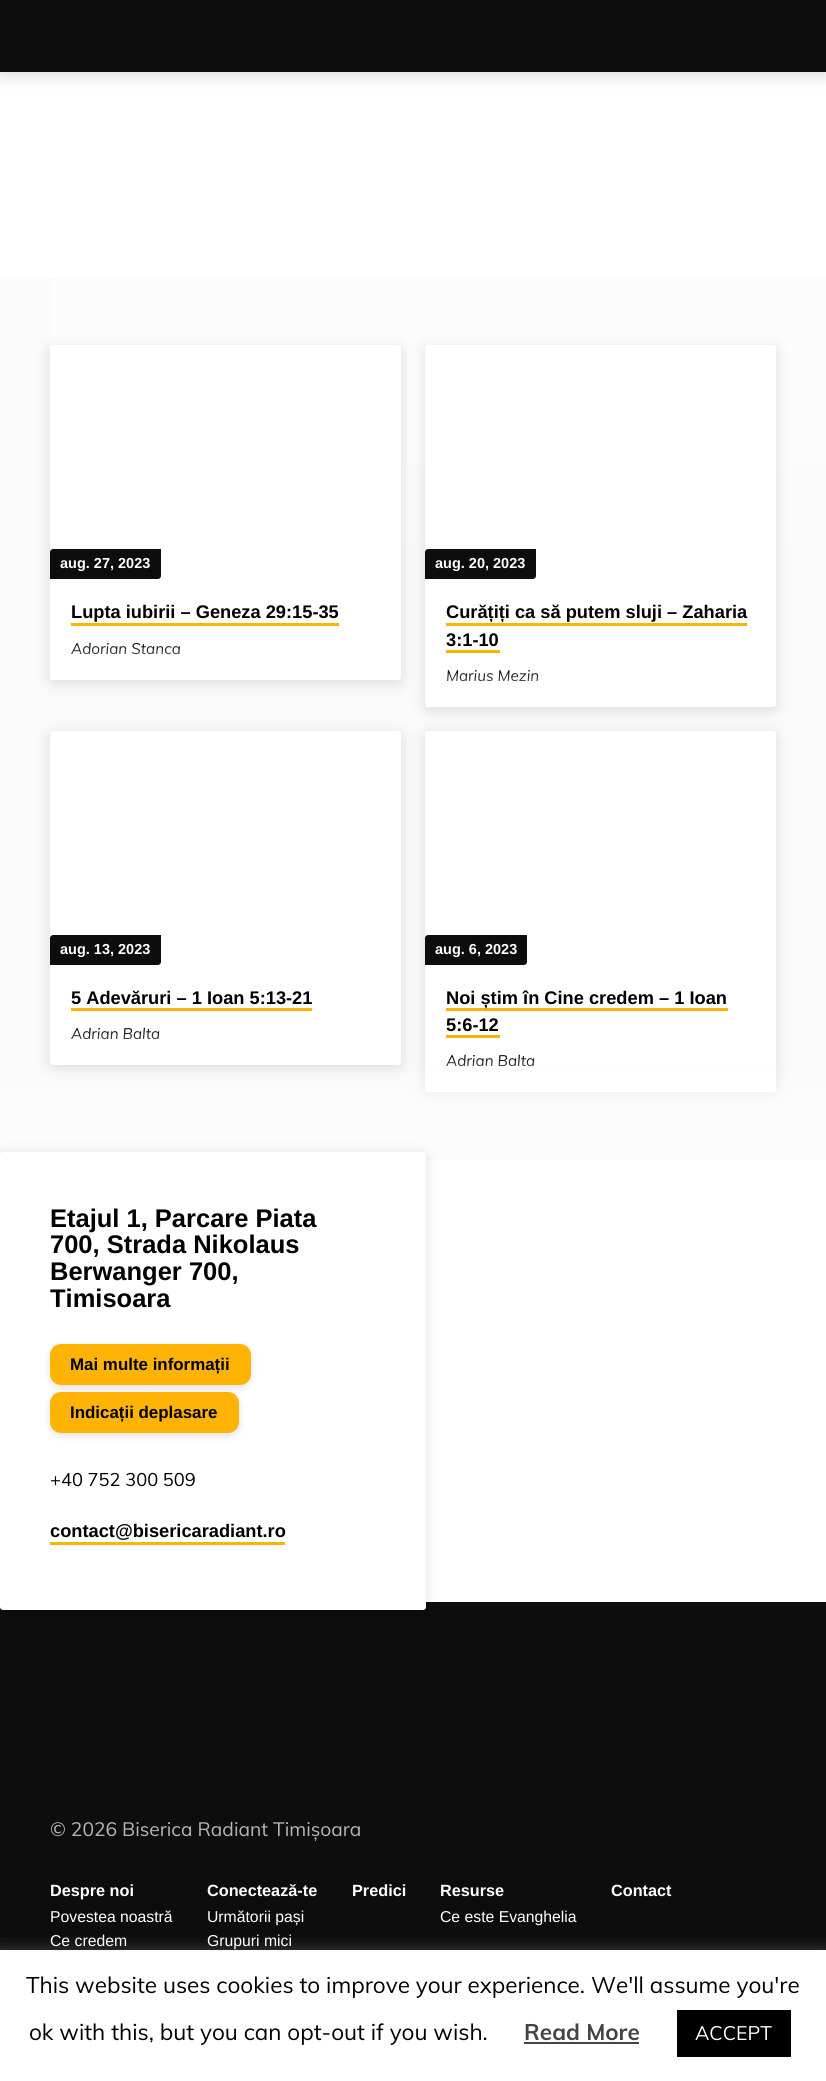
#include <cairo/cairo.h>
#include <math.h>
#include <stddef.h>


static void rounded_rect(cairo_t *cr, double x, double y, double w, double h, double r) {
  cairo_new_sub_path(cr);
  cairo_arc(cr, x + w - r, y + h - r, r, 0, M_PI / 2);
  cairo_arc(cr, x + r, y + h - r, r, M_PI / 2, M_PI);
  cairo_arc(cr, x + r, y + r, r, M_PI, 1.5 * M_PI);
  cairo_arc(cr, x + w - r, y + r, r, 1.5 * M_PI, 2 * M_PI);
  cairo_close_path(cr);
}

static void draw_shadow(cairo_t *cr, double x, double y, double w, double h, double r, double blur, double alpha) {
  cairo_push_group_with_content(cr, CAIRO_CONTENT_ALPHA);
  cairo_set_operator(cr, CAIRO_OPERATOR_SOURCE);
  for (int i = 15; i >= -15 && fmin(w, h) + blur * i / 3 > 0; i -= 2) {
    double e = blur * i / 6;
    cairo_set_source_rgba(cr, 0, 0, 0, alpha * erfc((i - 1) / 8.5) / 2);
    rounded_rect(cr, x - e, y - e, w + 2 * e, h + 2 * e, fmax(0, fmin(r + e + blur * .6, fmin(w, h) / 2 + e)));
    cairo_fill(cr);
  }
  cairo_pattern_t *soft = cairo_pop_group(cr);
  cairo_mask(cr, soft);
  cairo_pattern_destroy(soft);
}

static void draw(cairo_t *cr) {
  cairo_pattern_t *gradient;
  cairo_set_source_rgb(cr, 1, 1, 1);
  cairo_paint(cr);
  cairo_set_source_rgb(cr, 13 / 255.0, 13 / 255.0, 13 / 255.0);
  draw_shadow(cr, 0, 3, 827, 72, 0, 9, 0.15);
  cairo_set_source_rgb(cr, 13 / 255.0, 13 / 255.0, 13 / 255.0);
  cairo_rectangle(cr, 0, 0, 826, 72);
  cairo_fill(cr);
  cairo_set_source_rgb(cr, 250 / 255.0, 250 / 255.0, 250 / 255.0);
  cairo_rectangle(cr, 0, 278, 50, 834);
  cairo_fill(cr);
  gradient = cairo_pattern_create_linear(463, 277, 463, 1160);
  cairo_pattern_add_color_stop_rgba(gradient, 0.17, 252 / 255.0, 252 / 255.0, 252 / 255.0, 1);
  cairo_pattern_add_color_stop_rgba(gradient, 0.34, 250 / 255.0, 250 / 255.0, 250 / 255.0, 1);
  cairo_set_source(cr, gradient);
  cairo_pattern_destroy(gradient);
  cairo_rectangle(cr, 50, 278, 776, 834);
  cairo_fill(cr);
  cairo_set_source_rgb(cr, 0, 0, 0);
  draw_shadow(cr, 50, 348, 351, 335, 3, 7.5, 0.12);
  cairo_set_source_rgb(cr, 1, 1, 1);
  rounded_rect(cr, 50, 345, 351, 335, 3);
  cairo_fill(cr);
  cairo_set_source_rgb(cr, 13 / 255.0, 13 / 255.0, 13 / 255.0);
  cairo_new_path(cr);
  cairo_move_to(cr, 53, 549);
  cairo_line_to(cr, 161, 549);
  cairo_line_to(cr, 161, 576);
  cairo_curve_to(cr, 161, 577.5, 159.5, 579, 158, 579);
  cairo_line_to(cr, 50, 579);
  cairo_line_to(cr, 50, 552);
  cairo_curve_to(cr, 50, 550.5, 51.5, 549, 53, 549);
  cairo_close_path(cr);
  cairo_fill(cr);
  cairo_set_source_rgb(cr, 1, 180 / 255.0, 5 / 255.0);
  cairo_rectangle(cr, 71, 623, 268, 3);
  cairo_fill(cr);
  cairo_set_source_rgb(cr, 0, 0, 0);
  draw_shadow(cr, 425, 348, 351, 362, 3, 7.5, 0.12);
  cairo_set_source_rgb(cr, 1, 1, 1);
  rounded_rect(cr, 425, 345, 351, 362, 3);
  cairo_fill(cr);
  cairo_set_source_rgb(cr, 13 / 255.0, 13 / 255.0, 13 / 255.0);
  cairo_new_path(cr);
  cairo_move_to(cr, 428, 549);
  cairo_line_to(cr, 536, 549);
  cairo_line_to(cr, 536, 576);
  cairo_curve_to(cr, 536, 577.5, 534.5, 579, 533, 579);
  cairo_line_to(cr, 425, 579);
  cairo_line_to(cr, 425, 552);
  cairo_curve_to(cr, 425, 550.5, 426.5, 549, 428, 549);
  cairo_close_path(cr);
  cairo_fill(cr);
  cairo_set_source_rgb(cr, 1, 180 / 255.0, 5 / 255.0);
  cairo_rectangle(cr, 446, 623, 301, 3);
  cairo_fill(cr);
  cairo_rectangle(cr, 446, 650, 54, 3);
  cairo_fill(cr);
  cairo_set_source_rgb(cr, 0, 0, 0);
  draw_shadow(cr, 50, 734, 351, 334, 3, 7.5, 0.12);
  cairo_set_source_rgb(cr, 1, 1, 1);
  rounded_rect(cr, 50, 731, 351, 334, 3);
  cairo_fill(cr);
  cairo_set_source_rgb(cr, 13 / 255.0, 13 / 255.0, 13 / 255.0);
  cairo_new_path(cr);
  cairo_move_to(cr, 53, 935);
  cairo_line_to(cr, 161, 935);
  cairo_line_to(cr, 161, 962);
  cairo_curve_to(cr, 161, 963.5, 159.5, 965, 158, 965);
  cairo_line_to(cr, 50, 965);
  cairo_line_to(cr, 50, 938);
  cairo_curve_to(cr, 50, 936.5, 51.5, 935, 53, 935);
  cairo_close_path(cr);
  cairo_fill(cr);
  cairo_set_source_rgb(cr, 1, 180 / 255.0, 5 / 255.0);
  cairo_rectangle(cr, 71, 1008, 241, 3);
  cairo_fill(cr);
  cairo_set_source_rgb(cr, 0, 0, 0);
  draw_shadow(cr, 425, 734, 351, 361, 3, 7.5, 0.12);
  cairo_set_source_rgb(cr, 1, 1, 1);
  rounded_rect(cr, 425, 731, 351, 361, 3);
  cairo_fill(cr);
  cairo_set_source_rgb(cr, 13 / 255.0, 13 / 255.0, 13 / 255.0);
  cairo_new_path(cr);
  cairo_move_to(cr, 428, 935);
  cairo_line_to(cr, 527, 935);
  cairo_line_to(cr, 527, 962);
  cairo_curve_to(cr, 527, 963.5, 525.5, 965, 524, 965);
  cairo_line_to(cr, 425, 965);
  cairo_line_to(cr, 425, 938);
  cairo_curve_to(cr, 425, 936.5, 426.5, 935, 428, 935);
  cairo_close_path(cr);
  cairo_fill(cr);
  cairo_set_source_rgb(cr, 1, 180 / 255.0, 5 / 255.0);
  cairo_rectangle(cr, 446, 1008, 282, 3);
  cairo_fill(cr);
  cairo_rectangle(cr, 446, 1035, 54, 3);
  cairo_fill(cr);
  cairo_set_source_rgb(cr, 13 / 255.0, 13 / 255.0, 13 / 255.0);
  cairo_rectangle(cr, 0, 1602, 826, 348);
  cairo_fill(cr);
  cairo_set_source_rgb(cr, 172 / 255.0, 171 / 255.0, 171 / 255.0);
  draw_shadow(cr, 0, 1949, 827, 132, 0, 7.5, 0.3);
  cairo_set_source_rgb(cr, 1, 1, 1);
  cairo_rectangle(cr, 0, 1950, 826, 131);
  cairo_fill(cr);
  cairo_set_source_rgb(cr, 68 / 255.0, 68 / 255.0, 68 / 255.0);
  cairo_rectangle(cr, 524, 2042, 115, 2);
  cairo_fill(cr);
  cairo_set_source_rgb(cr, 0, 0, 0);
  cairo_rectangle(cr, 677, 2010, 114, 47);
  cairo_fill(cr);
  cairo_select_font_face(cr, "Liberation Sans", CAIRO_FONT_SLANT_NORMAL, CAIRO_FONT_WEIGHT_BOLD);
  cairo_set_font_size(cr, 14.5);
  cairo_set_source_rgb(cr, 1, 1, 1);
  cairo_move_to(cr, 60, 568);
  cairo_show_text(cr, "aug. 27, 2023");
  cairo_set_font_size(cr, 18.25);
  cairo_set_source_rgb(cr, 0, 0, 0);
  cairo_move_to(cr, 71, 618);
  cairo_show_text(cr, "Lupta iubirii – Geneza 29:15-35");
  cairo_select_font_face(cr, "Muli", CAIRO_FONT_SLANT_ITALIC, CAIRO_FONT_WEIGHT_NORMAL);
  cairo_set_font_size(cr, 15.25);
  cairo_move_to(cr, 71, 654);
  cairo_show_text(cr, "Adorian Stanca");
  gradient = cairo_pattern_create_linear(225, 642, 225, 680);
  cairo_pattern_add_color_stop_rgba(gradient, 0, 1, 1, 1, 0);
  cairo_pattern_add_color_stop_rgba(gradient, 1, 1, 1, 1, 0.9);
  cairo_set_source(cr, gradient);
  cairo_pattern_destroy(gradient);
  cairo_new_path(cr);
  cairo_move_to(cr, 50, 642);
  cairo_line_to(cr, 401, 642);
  cairo_line_to(cr, 401, 677);
  cairo_curve_to(cr, 401, 678.5, 399.5, 680, 398, 680);
  cairo_line_to(cr, 53, 680);
  cairo_curve_to(cr, 51.5, 680, 50, 678.5, 50, 677);
  cairo_close_path(cr);
  cairo_fill(cr);
  cairo_select_font_face(cr, "Liberation Sans", CAIRO_FONT_SLANT_NORMAL, CAIRO_FONT_WEIGHT_BOLD);
  cairo_set_font_size(cr, 14.5);
  cairo_set_source_rgb(cr, 1, 1, 1);
  cairo_move_to(cr, 435, 568);
  cairo_show_text(cr, "aug. 20, 2023");
  cairo_set_font_size(cr, 18.25);
  cairo_set_source_rgb(cr, 0, 0, 0);
  cairo_move_to(cr, 446, 618);
  cairo_show_text(cr, "Curățiți ca să putem sluji – Zaharia");
  cairo_move_to(cr, 446, 646);
  cairo_show_text(cr, "3:1-10");
  cairo_select_font_face(cr, "Muli", CAIRO_FONT_SLANT_ITALIC, CAIRO_FONT_WEIGHT_NORMAL);
  cairo_set_font_size(cr, 15.25);
  cairo_move_to(cr, 446, 681);
  cairo_show_text(cr, "Marius Mezin");
  gradient = cairo_pattern_create_linear(600, 669, 600, 707);
  cairo_pattern_add_color_stop_rgba(gradient, 0, 1, 1, 1, 0);
  cairo_pattern_add_color_stop_rgba(gradient, 1, 1, 1, 1, 0.9);
  cairo_set_source(cr, gradient);
  cairo_pattern_destroy(gradient);
  cairo_new_path(cr);
  cairo_move_to(cr, 425, 669);
  cairo_line_to(cr, 776, 669);
  cairo_line_to(cr, 776, 704);
  cairo_curve_to(cr, 776, 705.5, 774.5, 707, 773, 707);
  cairo_line_to(cr, 428, 707);
  cairo_curve_to(cr, 426.5, 707, 425, 705.5, 425, 704);
  cairo_close_path(cr);
  cairo_fill(cr);
  cairo_select_font_face(cr, "Liberation Sans", CAIRO_FONT_SLANT_NORMAL, CAIRO_FONT_WEIGHT_BOLD);
  cairo_set_font_size(cr, 14.5);
  cairo_set_source_rgb(cr, 1, 1, 1);
  cairo_move_to(cr, 60, 954);
  cairo_show_text(cr, "aug. 13, 2023");
  cairo_set_font_size(cr, 18.25);
  cairo_set_source_rgb(cr, 0, 0, 0);
  cairo_move_to(cr, 71, 1004);
  cairo_show_text(cr, "5 Adevăruri – 1 Ioan 5:13-21");
  cairo_select_font_face(cr, "Muli", CAIRO_FONT_SLANT_ITALIC, CAIRO_FONT_WEIGHT_NORMAL);
  cairo_set_font_size(cr, 15.25);
  cairo_move_to(cr, 71, 1039);
  cairo_show_text(cr, "Adrian Balta");
  gradient = cairo_pattern_create_linear(225, 1028, 225, 1065);
  cairo_pattern_add_color_stop_rgba(gradient, 0, 1, 1, 1, 0);
  cairo_pattern_add_color_stop_rgba(gradient, 1, 1, 1, 1, 0.9);
  cairo_set_source(cr, gradient);
  cairo_pattern_destroy(gradient);
  cairo_new_path(cr);
  cairo_move_to(cr, 50, 1028);
  cairo_line_to(cr, 401, 1028);
  cairo_line_to(cr, 401, 1062);
  cairo_curve_to(cr, 401, 1063.5, 399.5, 1065, 398, 1065);
  cairo_line_to(cr, 53, 1065);
  cairo_curve_to(cr, 51.5, 1065, 50, 1063.5, 50, 1062);
  cairo_close_path(cr);
  cairo_fill(cr);
  cairo_select_font_face(cr, "Liberation Sans", CAIRO_FONT_SLANT_NORMAL, CAIRO_FONT_WEIGHT_BOLD);
  cairo_set_font_size(cr, 14.5);
  cairo_set_source_rgb(cr, 1, 1, 1);
  cairo_move_to(cr, 435, 954);
  cairo_show_text(cr, "aug. 6, 2023");
  cairo_set_font_size(cr, 18.25);
  cairo_set_source_rgb(cr, 0, 0, 0);
  cairo_move_to(cr, 446, 1004);
  cairo_show_text(cr, "Noi știm în Cine credem – 1 Ioan");
  cairo_move_to(cr, 446, 1031);
  cairo_show_text(cr, "5:6-12");
  cairo_select_font_face(cr, "Muli", CAIRO_FONT_SLANT_ITALIC, CAIRO_FONT_WEIGHT_NORMAL);
  cairo_set_font_size(cr, 15.25);
  cairo_move_to(cr, 446, 1066);
  cairo_show_text(cr, "Adrian Balta");
  gradient = cairo_pattern_create_linear(413, 1160, 413, 1064);
  cairo_pattern_add_color_stop_rgba(gradient, 0.5, 252 / 255.0, 252 / 255.0, 252 / 255.0, 1);
  cairo_pattern_add_color_stop_rgba(gradient, 1, 252 / 255.0, 252 / 255.0, 252 / 255.0, 0);
  cairo_set_source(cr, gradient);
  cairo_pattern_destroy(gradient);
  cairo_rectangle(cr, 0, 1065, 826, 95);
  cairo_fill(cr);
  gradient = cairo_pattern_create_linear(600, 1055, 600, 1092);
  cairo_pattern_add_color_stop_rgba(gradient, 0, 1, 1, 1, 0);
  cairo_pattern_add_color_stop_rgba(gradient, 1, 1, 1, 1, 0.9);
  cairo_set_source(cr, gradient);
  cairo_pattern_destroy(gradient);
  cairo_new_path(cr);
  cairo_move_to(cr, 425, 1055);
  cairo_line_to(cr, 776, 1055);
  cairo_line_to(cr, 776, 1089);
  cairo_curve_to(cr, 776, 1090.5, 774.5, 1092, 773, 1092);
  cairo_line_to(cr, 428, 1092);
  cairo_curve_to(cr, 426.5, 1092, 425, 1090.5, 425, 1089);
  cairo_close_path(cr);
  cairo_fill(cr);
  cairo_set_source_rgb(cr, 0, 0, 0);
  draw_shadow(cr, 0, 1155, 426, 458, 3, 7.5, 0.12);
  cairo_set_source_rgb(cr, 1, 1, 1);
  rounded_rect(cr, 0, 1152, 426, 458, 3);
  cairo_fill(cr);
  cairo_select_font_face(cr, "Liberation Sans", CAIRO_FONT_SLANT_NORMAL, CAIRO_FONT_WEIGHT_BOLD);
  cairo_set_font_size(cr, 25.5);
  cairo_set_source_rgb(cr, 0, 0, 0);
  cairo_move_to(cr, 50, 1227);
  cairo_show_text(cr, "Etajul 1, Parcare Piata");
  cairo_move_to(cr, 50, 1253);
  cairo_show_text(cr, "700, Strada Nikolaus");
  cairo_move_to(cr, 50, 1280);
  cairo_show_text(cr, "Berwanger 700,");
  cairo_move_to(cr, 50, 1307);
  cairo_show_text(cr, "Timisoara");
  cairo_set_source_rgb(cr, 0, 0, 0);
  draw_shadow(cr, 50, 1347, 201, 41, 11, 4, 0.12);
  cairo_set_source_rgb(cr, 1, 180 / 255.0, 5 / 255.0);
  rounded_rect(cr, 51.5, 1345.5, 198, 38, 9.5);
  cairo_fill_preserve(cr);
  cairo_set_line_width(cr, 3);
  cairo_stroke(cr);
  cairo_set_font_size(cr, 16.9);
  cairo_set_source_rgb(cr, 0, 0, 0);
  cairo_move_to(cr, 70, 1370);
  cairo_show_text(cr, "Mai multe informații");
  cairo_set_source_rgb(cr, 0, 0, 0);
  draw_shadow(cr, 50, 1395, 189, 41, 11, 4, 0.12);
  cairo_set_source_rgb(cr, 1, 180 / 255.0, 5 / 255.0);
  rounded_rect(cr, 51.5, 1393.5, 186, 38, 9.5);
  cairo_fill_preserve(cr);
  cairo_stroke(cr);
  cairo_set_source_rgb(cr, 0, 0, 0);
  cairo_move_to(cr, 70, 1418);
  cairo_show_text(cr, "Indicații deplasare");
  cairo_select_font_face(cr, "Muli", CAIRO_FONT_SLANT_NORMAL, CAIRO_FONT_WEIGHT_NORMAL);
  cairo_set_font_size(cr, 18.25);
  cairo_move_to(cr, 50, 1486);
  cairo_show_text(cr, "+40 752 300 509");
  cairo_select_font_face(cr, "Liberation Sans", CAIRO_FONT_SLANT_NORMAL, CAIRO_FONT_WEIGHT_BOLD);
  cairo_move_to(cr, 50, 1537);
  cairo_show_text(cr, "contact@bisericaradiant.ro");
  cairo_set_source_rgb(cr, 1, 180 / 255.0, 5 / 255.0);
  cairo_rectangle(cr, 50, 1542, 235, 3);
  cairo_fill(cr);
  cairo_select_font_face(cr, "Muli", CAIRO_FONT_SLANT_NORMAL, CAIRO_FONT_WEIGHT_NORMAL);
  cairo_set_font_size(cr, 19.25);
  cairo_set_source_rgb(cr, 182 / 255.0, 182 / 255.0, 182 / 255.0);
  cairo_move_to(cr, 50, 1836);
  cairo_show_text(cr, "© 2026 Biserica Radiant Timișoara");
  cairo_select_font_face(cr, "Liberation Sans", CAIRO_FONT_SLANT_NORMAL, CAIRO_FONT_WEIGHT_BOLD);
  cairo_set_font_size(cr, 16.25);
  cairo_set_source_rgb(cr, 1, 1, 1);
  cairo_move_to(cr, 50, 1896);
  cairo_show_text(cr, "Despre noi");
  cairo_select_font_face(cr, "Liberation Sans", CAIRO_FONT_SLANT_NORMAL, CAIRO_FONT_WEIGHT_NORMAL);
  cairo_set_font_size(cr, 15.75);
  cairo_move_to(cr, 50, 1922);
  cairo_show_text(cr, "Povestea noastră");
  cairo_move_to(cr, 50, 1946);
  cairo_show_text(cr, "Ce credem");
  cairo_select_font_face(cr, "Liberation Sans", CAIRO_FONT_SLANT_NORMAL, CAIRO_FONT_WEIGHT_BOLD);
  cairo_set_font_size(cr, 16.25);
  cairo_move_to(cr, 207, 1896);
  cairo_show_text(cr, "Conectează-te");
  cairo_select_font_face(cr, "Liberation Sans", CAIRO_FONT_SLANT_NORMAL, CAIRO_FONT_WEIGHT_NORMAL);
  cairo_set_font_size(cr, 15.75);
  cairo_move_to(cr, 207, 1922);
  cairo_show_text(cr, "Următorii pași");
  cairo_move_to(cr, 207, 1946);
  cairo_show_text(cr, "Grupuri mici");
  cairo_select_font_face(cr, "Liberation Sans", CAIRO_FONT_SLANT_NORMAL, CAIRO_FONT_WEIGHT_BOLD);
  cairo_set_font_size(cr, 16.25);
  cairo_move_to(cr, 352, 1896);
  cairo_show_text(cr, "Predici");
  cairo_move_to(cr, 440, 1896);
  cairo_show_text(cr, "Resurse");
  cairo_select_font_face(cr, "Liberation Sans", CAIRO_FONT_SLANT_NORMAL, CAIRO_FONT_WEIGHT_NORMAL);
  cairo_set_font_size(cr, 15.75);
  cairo_move_to(cr, 440, 1922);
  cairo_show_text(cr, "Ce este Evanghelia");
  cairo_select_font_face(cr, "Liberation Sans", CAIRO_FONT_SLANT_NORMAL, CAIRO_FONT_WEIGHT_BOLD);
  cairo_set_font_size(cr, 16.25);
  cairo_move_to(cr, 611, 1896);
  cairo_show_text(cr, "Contact");
  cairo_select_font_face(cr, "Muli", CAIRO_FONT_SLANT_NORMAL, CAIRO_FONT_WEIGHT_NORMAL);
  cairo_set_font_size(cr, 22.5);
  cairo_set_source_rgb(cr, 0, 0, 0);
  cairo_move_to(cr, 26, 1993);
  cairo_show_text(cr, "This website uses cookies to improve your experience. We'll assume you're");
  cairo_move_to(cr, 29, 2040);
  cairo_show_text(cr, "ok with this, but you can opt-out if you wish.");
  cairo_select_font_face(cr, "Muli", CAIRO_FONT_SLANT_NORMAL, CAIRO_FONT_WEIGHT_BOLD);
  cairo_set_source_rgb(cr, 68 / 255.0, 68 / 255.0, 68 / 255.0);
  cairo_move_to(cr, 524, 2040);
  cairo_show_text(cr, "Read More");
  cairo_select_font_face(cr, "Muli", CAIRO_FONT_SLANT_NORMAL, CAIRO_FONT_WEIGHT_NORMAL);
  cairo_set_font_size(cr, 19.5);
  cairo_set_source_rgb(cr, 1, 1, 1);
  cairo_move_to(cr, 695, 2040);
  cairo_show_text(cr, "ACCEPT");
}

int main(void) {
  cairo_surface_t *surface = cairo_image_surface_create(CAIRO_FORMAT_RGB24, 826, 2081);
  cairo_t *cr = cairo_create(surface);
  cairo_font_options_t *options = cairo_font_options_create();
  cairo_font_options_set_hint_metrics(options, CAIRO_HINT_METRICS_OFF);
  cairo_font_options_set_hint_style(options, CAIRO_HINT_STYLE_NONE);
  cairo_set_font_options(cr, options);
  cairo_set_miter_limit(cr, 4);
  draw(cr);
  cairo_surface_write_to_png(surface, "out.png");
  cairo_font_options_destroy(options);
  cairo_destroy(cr);
  cairo_surface_destroy(surface);
  return 0;
}
